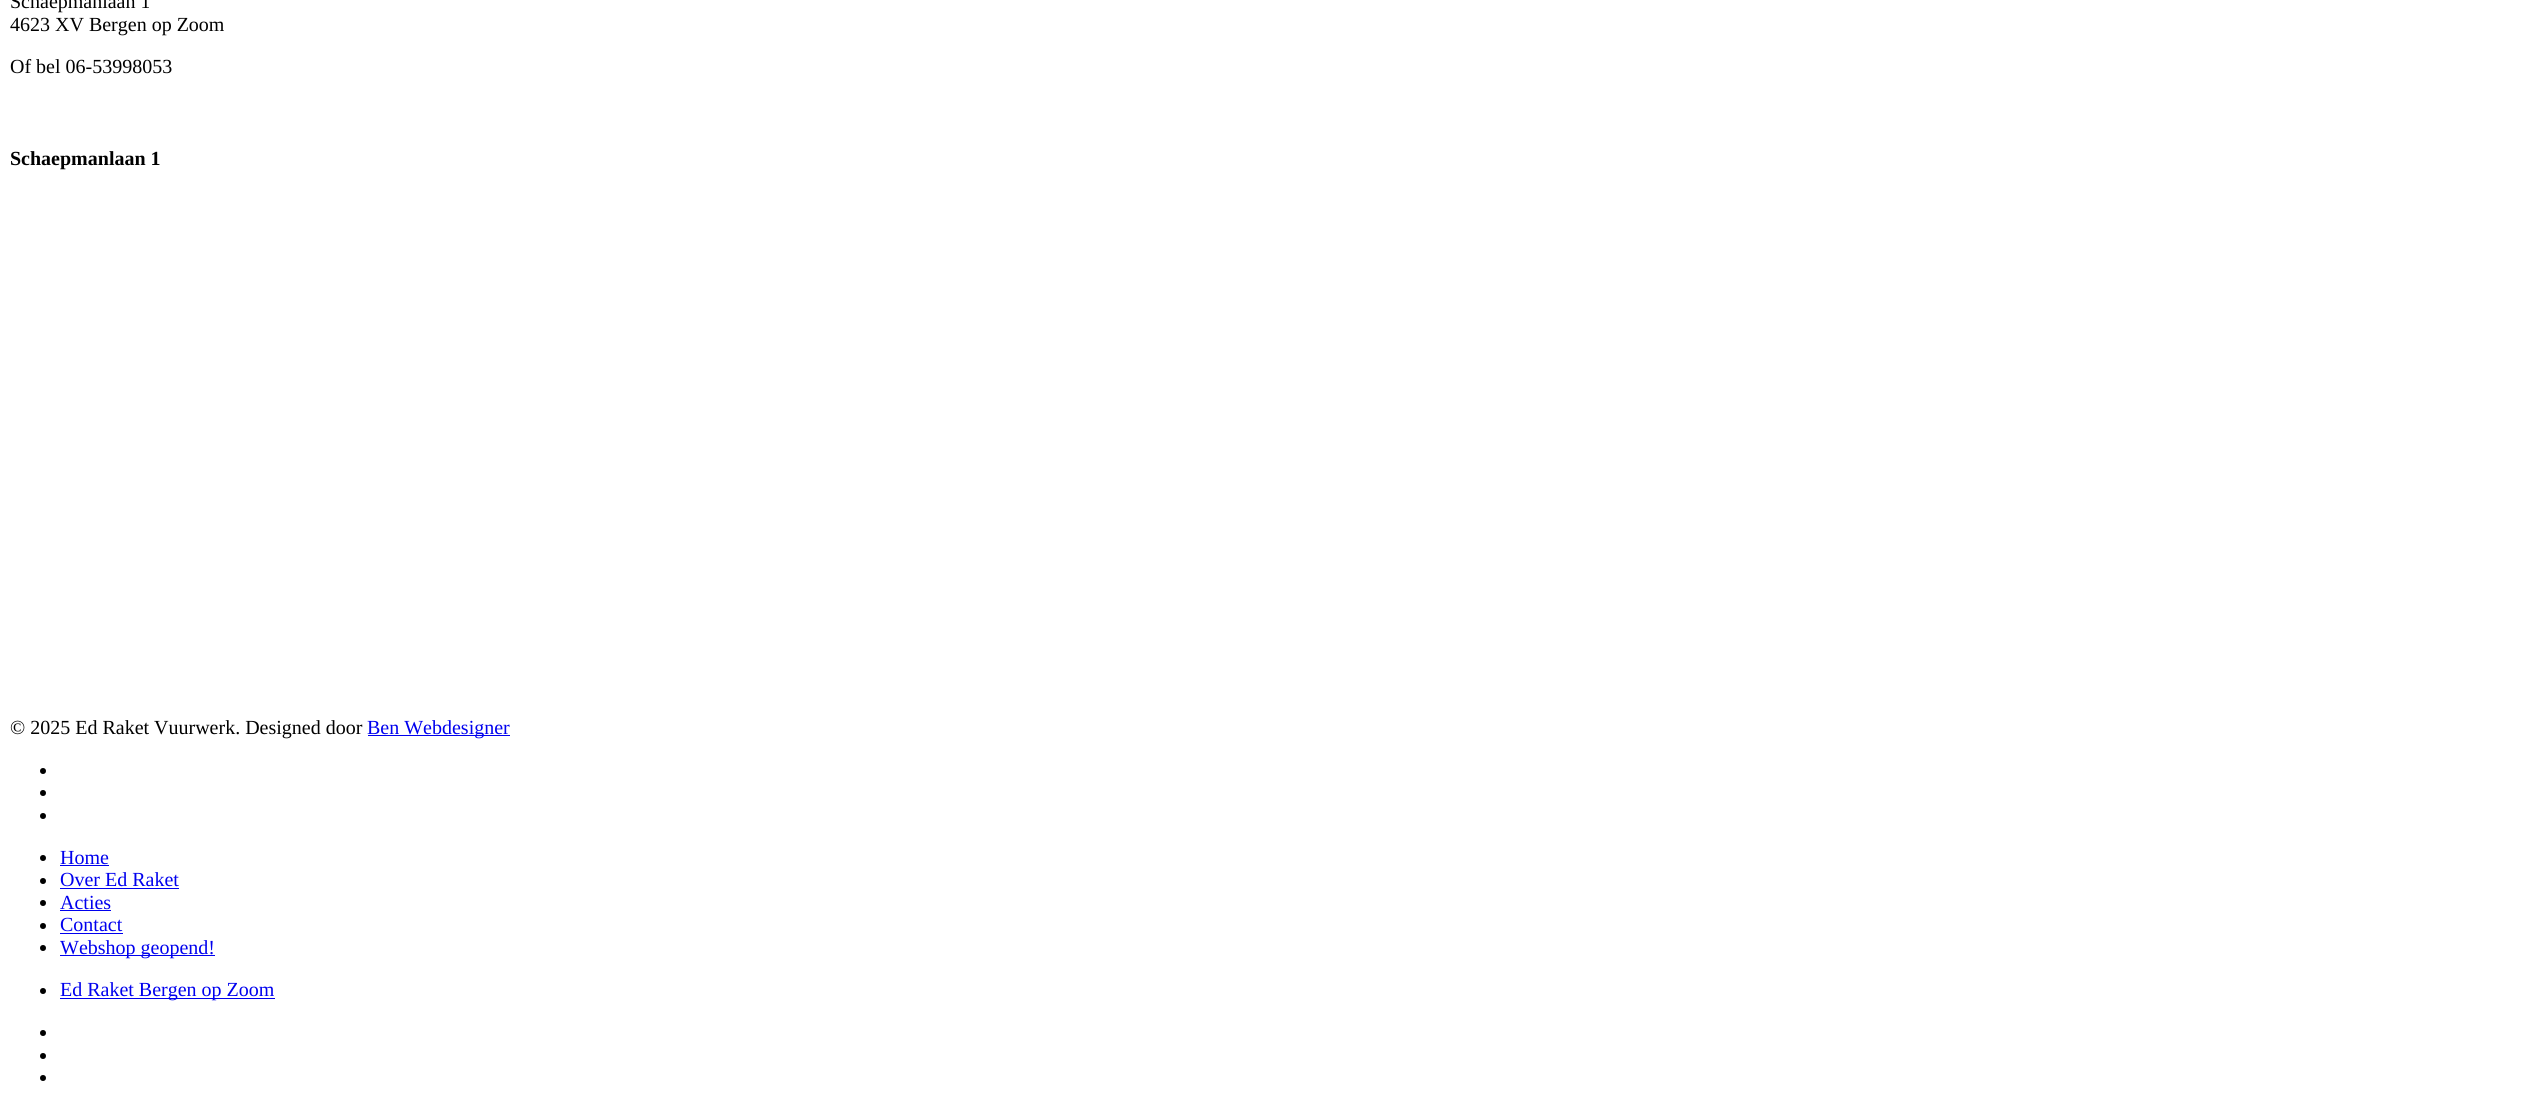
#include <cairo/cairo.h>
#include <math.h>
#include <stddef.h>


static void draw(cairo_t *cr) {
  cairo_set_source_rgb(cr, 1, 1, 1);
  cairo_paint(cr);
  cairo_set_source_rgb(cr, 0, 0, 238 / 255.0);
  cairo_rectangle(cr, 368, 735, 142, 1);
  cairo_fill(cr);
  cairo_set_source_rgb(cr, 0, 0, 0);
  cairo_arc(cr, 43, 771, 3, 0, 2 * M_PI);
  cairo_fill(cr);
  cairo_arc(cr, 43, 793, 3, 0, 2 * M_PI);
  cairo_fill(cr);
  cairo_arc(cr, 43, 816, 3, 0, 2 * M_PI);
  cairo_fill(cr);
  cairo_arc(cr, 43, 858, 3, 0, 2 * M_PI);
  cairo_fill(cr);
  cairo_set_source_rgb(cr, 0, 0, 238 / 255.0);
  cairo_rectangle(cr, 60, 865, 49, 1);
  cairo_fill(cr);
  cairo_set_source_rgb(cr, 0, 0, 0);
  cairo_arc(cr, 43, 881, 3, 0, 2 * M_PI);
  cairo_fill(cr);
  cairo_set_source_rgb(cr, 0, 0, 238 / 255.0);
  cairo_rectangle(cr, 60, 888, 119, 1);
  cairo_fill(cr);
  cairo_set_source_rgb(cr, 0, 0, 0);
  cairo_arc(cr, 43, 903, 3, 0, 2 * M_PI);
  cairo_fill(cr);
  cairo_set_source_rgb(cr, 0, 0, 238 / 255.0);
  cairo_rectangle(cr, 60, 910, 51, 1);
  cairo_fill(cr);
  cairo_set_source_rgb(cr, 0, 0, 0);
  cairo_arc(cr, 43, 926, 3, 0, 2 * M_PI);
  cairo_fill(cr);
  cairo_set_source_rgb(cr, 0, 0, 238 / 255.0);
  cairo_rectangle(cr, 60, 933, 63, 1);
  cairo_fill(cr);
  cairo_set_source_rgb(cr, 0, 0, 0);
  cairo_arc(cr, 43, 948, 3, 0, 2 * M_PI);
  cairo_fill(cr);
  cairo_set_source_rgb(cr, 0, 0, 238 / 255.0);
  cairo_rectangle(cr, 60, 955, 155, 1);
  cairo_fill(cr);
  cairo_set_source_rgb(cr, 0, 0, 0);
  cairo_arc(cr, 43, 991, 3, 0, 2 * M_PI);
  cairo_fill(cr);
  cairo_set_source_rgb(cr, 0, 0, 238 / 255.0);
  cairo_rectangle(cr, 60, 998, 215, 1);
  cairo_fill(cr);
  cairo_set_source_rgb(cr, 0, 0, 0);
  cairo_arc(cr, 43, 1033, 3, 0, 2 * M_PI);
  cairo_fill(cr);
  cairo_arc(cr, 43, 1056, 3, 0, 2 * M_PI);
  cairo_fill(cr);
  cairo_arc(cr, 43, 1078, 3, 0, 2 * M_PI);
  cairo_fill(cr);
  cairo_select_font_face(cr, "Liberation Serif", CAIRO_FONT_SLANT_NORMAL, CAIRO_FONT_WEIGHT_NORMAL);
  cairo_set_font_size(cr, 20);
  cairo_move_to(cr, 10, 8);
  cairo_show_text(cr, "Schaepmanlaan 1");
  cairo_move_to(cr, 10, 31);
  cairo_show_text(cr, "4623 XV Bergen op Zoom");
  cairo_move_to(cr, 10, 73);
  cairo_show_text(cr, "Of bel 06-53998053");
  cairo_select_font_face(cr, "Liberation Serif", CAIRO_FONT_SLANT_NORMAL, CAIRO_FONT_WEIGHT_BOLD);
  cairo_move_to(cr, 10, 165);
  cairo_show_text(cr, "Schaepmanlaan 1");
  cairo_select_font_face(cr, "Liberation Serif", CAIRO_FONT_SLANT_NORMAL, CAIRO_FONT_WEIGHT_NORMAL);
  cairo_move_to(cr, 10, 734);
  cairo_show_text(cr, "© 2025 Ed Raket Vuurwerk. Designed door");
  cairo_set_source_rgb(cr, 0, 0, 238 / 255.0);
  cairo_move_to(cr, 367, 734);
  cairo_show_text(cr, "Ben Webdesigner");
  cairo_move_to(cr, 60, 864);
  cairo_show_text(cr, "Home");
  cairo_move_to(cr, 60, 886);
  cairo_show_text(cr, "Over Ed Raket");
  cairo_move_to(cr, 60, 909);
  cairo_show_text(cr, "Acties");
  cairo_move_to(cr, 60, 931);
  cairo_show_text(cr, "Contact");
  cairo_move_to(cr, 60, 954);
  cairo_show_text(cr, "Webshop geopend!");
  cairo_move_to(cr, 60, 996);
  cairo_show_text(cr, "Ed Raket Bergen op Zoom");
}

int main(void) {
  cairo_surface_t *surface = cairo_image_surface_create(CAIRO_FORMAT_RGB24, 2524, 1108);
  cairo_t *cr = cairo_create(surface);
  cairo_font_options_t *options = cairo_font_options_create();
  cairo_font_options_set_hint_metrics(options, CAIRO_HINT_METRICS_OFF);
  cairo_font_options_set_hint_style(options, CAIRO_HINT_STYLE_NONE);
  cairo_set_font_options(cr, options);
  cairo_set_miter_limit(cr, 4);
  draw(cr);
  cairo_surface_write_to_png(surface, "out.png");
  cairo_font_options_destroy(options);
  cairo_destroy(cr);
  cairo_surface_destroy(surface);
  return 0;
}
